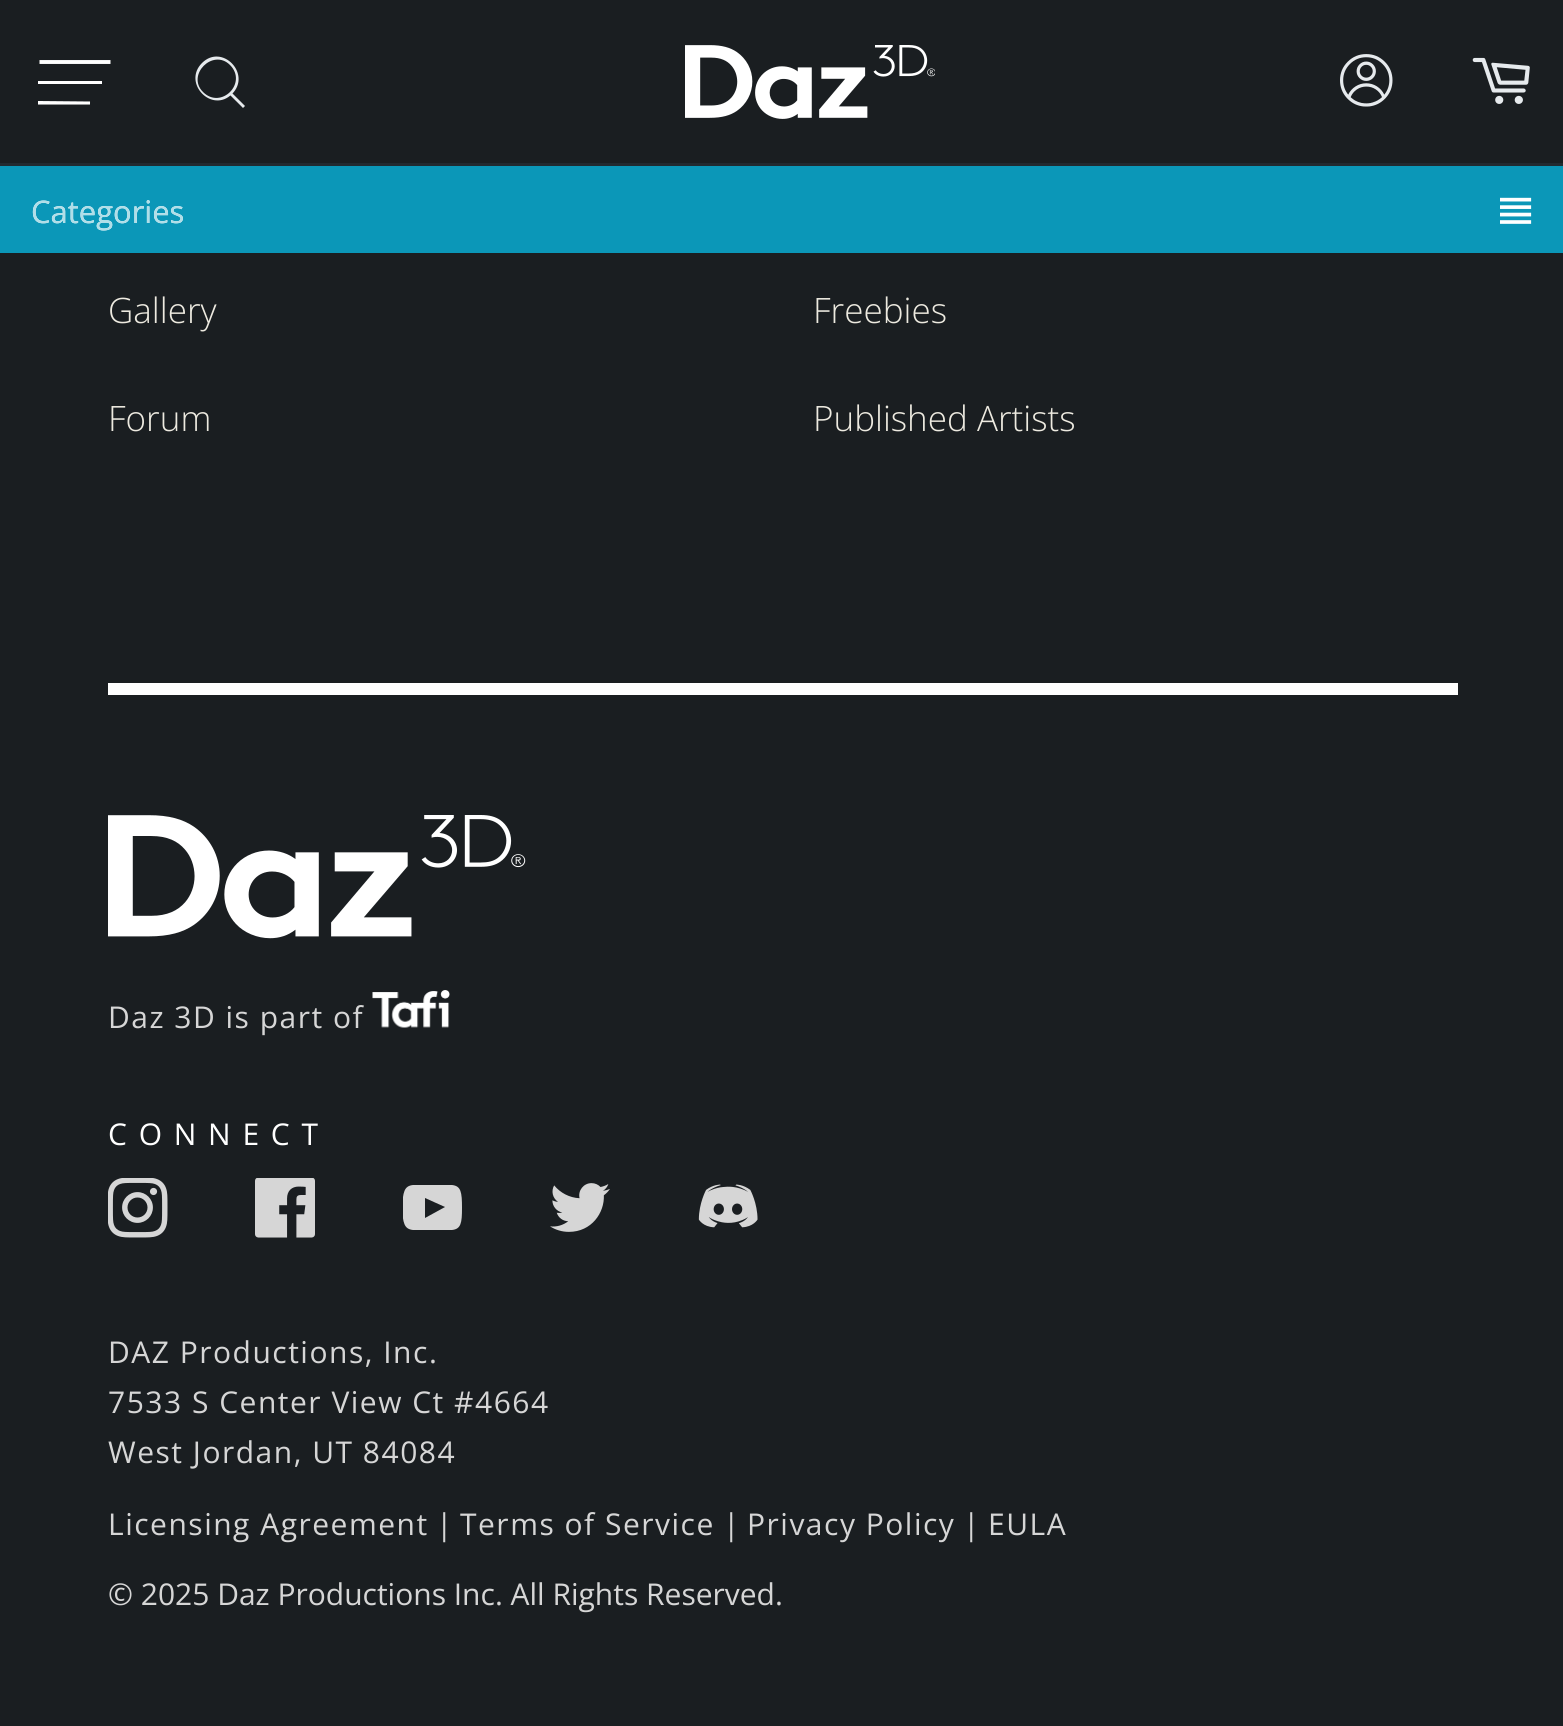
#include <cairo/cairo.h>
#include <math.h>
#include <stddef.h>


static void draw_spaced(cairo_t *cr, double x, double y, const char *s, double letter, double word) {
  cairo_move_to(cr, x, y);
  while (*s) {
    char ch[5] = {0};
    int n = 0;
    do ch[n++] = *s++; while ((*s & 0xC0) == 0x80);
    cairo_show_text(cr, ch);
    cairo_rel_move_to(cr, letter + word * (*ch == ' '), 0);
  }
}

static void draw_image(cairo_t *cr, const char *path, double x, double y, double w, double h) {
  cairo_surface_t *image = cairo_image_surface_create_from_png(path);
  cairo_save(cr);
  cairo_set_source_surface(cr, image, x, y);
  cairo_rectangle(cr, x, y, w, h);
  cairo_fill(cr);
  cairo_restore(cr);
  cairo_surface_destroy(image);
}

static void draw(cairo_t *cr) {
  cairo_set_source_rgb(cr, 26 / 255.0, 30 / 255.0, 33 / 255.0);
  cairo_paint(cr);
  cairo_set_source_rgb(cr, 34 / 255.0, 42 / 255.0, 48 / 255.0);
  cairo_rectangle(cr, 0, 163, 1563, 3);
  cairo_fill(cr);
  cairo_new_path(cr);
  cairo_move_to(cr, 39.5, 62);
  cairo_line_to(cr, 110.5, 62);
  cairo_close_path(cr);
  cairo_set_source_rgb(cr, 1, 1, 1);
  cairo_set_line_width(cr, 3.9);
  cairo_stroke(cr);
  cairo_rectangle(cr, 38, 81, 64, 3);
  cairo_fill(cr);
  cairo_new_path(cr);
  cairo_move_to(cr, 39.5, 103);
  cairo_line_to(cr, 90, 103);
  cairo_line_to(cr, 39.5, 102.5);
  cairo_close_path(cr);
  cairo_set_line_width(cr, 3);
  cairo_stroke(cr);
  cairo_set_source_rgb(cr, 230 / 255.0, 234 / 255.0, 237 / 255.0);
  cairo_new_path(cr);
  cairo_move_to(cr, 230, 65);
  cairo_curve_to(cr, 248, 83, 221, 110, 203, 92);
  cairo_curve_to(cr, 186, 75, 213, 48, 230, 65);
  cairo_close_path(cr);
  cairo_move_to(cr, 232, 94);
  cairo_curve_to(cr, 252, 74, 222, 43, 202, 63);
  cairo_curve_to(cr, 182, 83, 212, 114, 232, 94);
  cairo_close_path(cr);
  cairo_move_to(cr, 229, 94);
  cairo_line_to(cr, 243, 108);
  cairo_line_to(cr, 245, 106);
  cairo_line_to(cr, 231, 92);
  cairo_close_path(cr);
  cairo_fill(cr);
  draw_image(cr, "images/1.png", 685, 45, 250, 74);
  draw_image(cr, "images/2.png", 1340, 54, 53, 53);
  draw_image(cr, "images/3.png", 1472, 57, 58, 47);
  cairo_set_source_rgb(cr, 11 / 255.0, 151 / 255.0, 184 / 255.0);
  cairo_rectangle(cr, 0, 166, 1563, 87);
  cairo_fill(cr);
  draw_image(cr, "images/4.png", 1500, 197, 32, 27);
  cairo_set_source_rgb(cr, 1, 1, 1);
  cairo_rectangle(cr, 108, 683, 1350, 12);
  cairo_fill(cr);
  draw_image(cr, "images/5.png", 108, 815, 418, 124);
  draw_image(cr, "images/6.png", 372, 990, 78, 38);
  draw_image(cr, "images/7.png", 108, 1178, 60, 60);
  draw_image(cr, "images/8.png", 255, 1178, 60, 60);
  cairo_save(cr);
  cairo_rectangle(cr, 403, 1178, 60, 60);
  cairo_clip(cr);
  cairo_set_source_rgb(cr, 214 / 255.0, 214 / 255.0, 214 / 255.0);
  cairo_new_path(cr);
  cairo_move_to(cr, 452, 1185);
  cairo_curve_to(cr, 443, 1185, 422, 1185, 413, 1185);
  cairo_curve_to(cr, 404, 1186, 403, 1192, 402, 1208);
  cairo_curve_to(cr, 403, 1223, 404, 1229, 413, 1230);
  cairo_curve_to(cr, 422, 1230, 443, 1230, 452, 1230);
  cairo_curve_to(cr, 461, 1229, 462, 1223, 462, 1208);
  cairo_curve_to(cr, 462, 1192, 461, 1186, 452, 1185);
  cairo_close_path(cr);
  cairo_move_to(cr, 425, 1218);
  cairo_line_to(cr, 425, 1198);
  cairo_line_to(cr, 445, 1207);
  cairo_close_path(cr);
  cairo_fill(cr);
  cairo_restore(cr);
  draw_image(cr, "images/9.png", 550, 1183, 60, 49);
  draw_image(cr, "images/10.png", 698, 1184, 60, 44);
  cairo_select_font_face(cr, "Open Sans", CAIRO_FONT_SLANT_NORMAL, CAIRO_FONT_WEIGHT_NORMAL);
  cairo_set_font_size(cr, 31);
  cairo_move_to(cr, 31, 223);
  cairo_show_text(cr, "Categories");
  cairo_select_font_face(cr, "Open Sans Light", CAIRO_FONT_SLANT_NORMAL, CAIRO_FONT_WEIGHT_NORMAL);
  cairo_set_font_size(cr, 35);
  cairo_set_source_rgb(cr, 237 / 255.0, 234 / 255.0, 224 / 255.0);
  cairo_move_to(cr, 108, 323);
  cairo_show_text(cr, "Gallery");
  cairo_move_to(cr, 108, 431);
  cairo_show_text(cr, "Forum");
  cairo_move_to(cr, 813, 323);
  cairo_show_text(cr, "Freebies");
  cairo_move_to(cr, 813, 431);
  cairo_show_text(cr, "Published Artists");
  cairo_select_font_face(cr, "Open Sans", CAIRO_FONT_SLANT_NORMAL, CAIRO_FONT_WEIGHT_NORMAL);
  cairo_set_font_size(cr, 30);
  cairo_set_source_rgb(cr, 214 / 255.0, 214 / 255.0, 214 / 255.0);
  draw_spaced(cr, 108, 1028, "Daz 3D is part of", 1.5, 0);
  cairo_set_source_rgb(cr, 1, 1, 1);
  draw_spaced(cr, 108, 1145, "CONNECT", 11.75, 0);
  cairo_set_source_rgb(cr, 214 / 255.0, 214 / 255.0, 214 / 255.0);
  draw_spaced(cr, 108, 1363, "DAZ Productions, Inc.", 1.5, 0);
  draw_spaced(cr, 108, 1413, "7533 S Center View Ct #4664", 1.5, 0);
  draw_spaced(cr, 108, 1463, "West Jordan, UT 84084", 1.5, 0);
  draw_spaced(cr, 108, 1535, "Licensing Agreement", 1.5, 0);
  cairo_move_to(cr, 436, 1535);
  cairo_show_text(cr, "|");
  draw_spaced(cr, 460, 1535, "Terms of Service", 1.5, 0);
  cairo_move_to(cr, 723, 1535);
  cairo_show_text(cr, "|");
  draw_spaced(cr, 747, 1535, "Privacy Policy", 1.5, 0);
  cairo_move_to(cr, 963, 1535);
  cairo_show_text(cr, "|");
  draw_spaced(cr, 988, 1535, "EULA", 1.5, 0);
  cairo_move_to(cr, 108, 1605);
  cairo_show_text(cr, "© 2025 Daz Productions Inc. All Rights Reserved.");
  cairo_set_font_size(cr, 31);
  cairo_set_source_rgb(cr, 176 / 255.0, 222 / 255.0, 232 / 255.0);
  cairo_move_to(cr, 31, 223);
  cairo_show_text(cr, "Categories");
}

int main(void) {
  cairo_surface_t *surface = cairo_image_surface_create(CAIRO_FORMAT_RGB24, 1563, 1726);
  cairo_t *cr = cairo_create(surface);
  cairo_font_options_t *options = cairo_font_options_create();
  cairo_font_options_set_hint_metrics(options, CAIRO_HINT_METRICS_OFF);
  cairo_font_options_set_hint_style(options, CAIRO_HINT_STYLE_NONE);
  cairo_set_font_options(cr, options);
  cairo_set_miter_limit(cr, 4);
  draw(cr);
  cairo_surface_write_to_png(surface, "out.png");
  cairo_font_options_destroy(options);
  cairo_destroy(cr);
  cairo_surface_destroy(surface);
  return 0;
}
